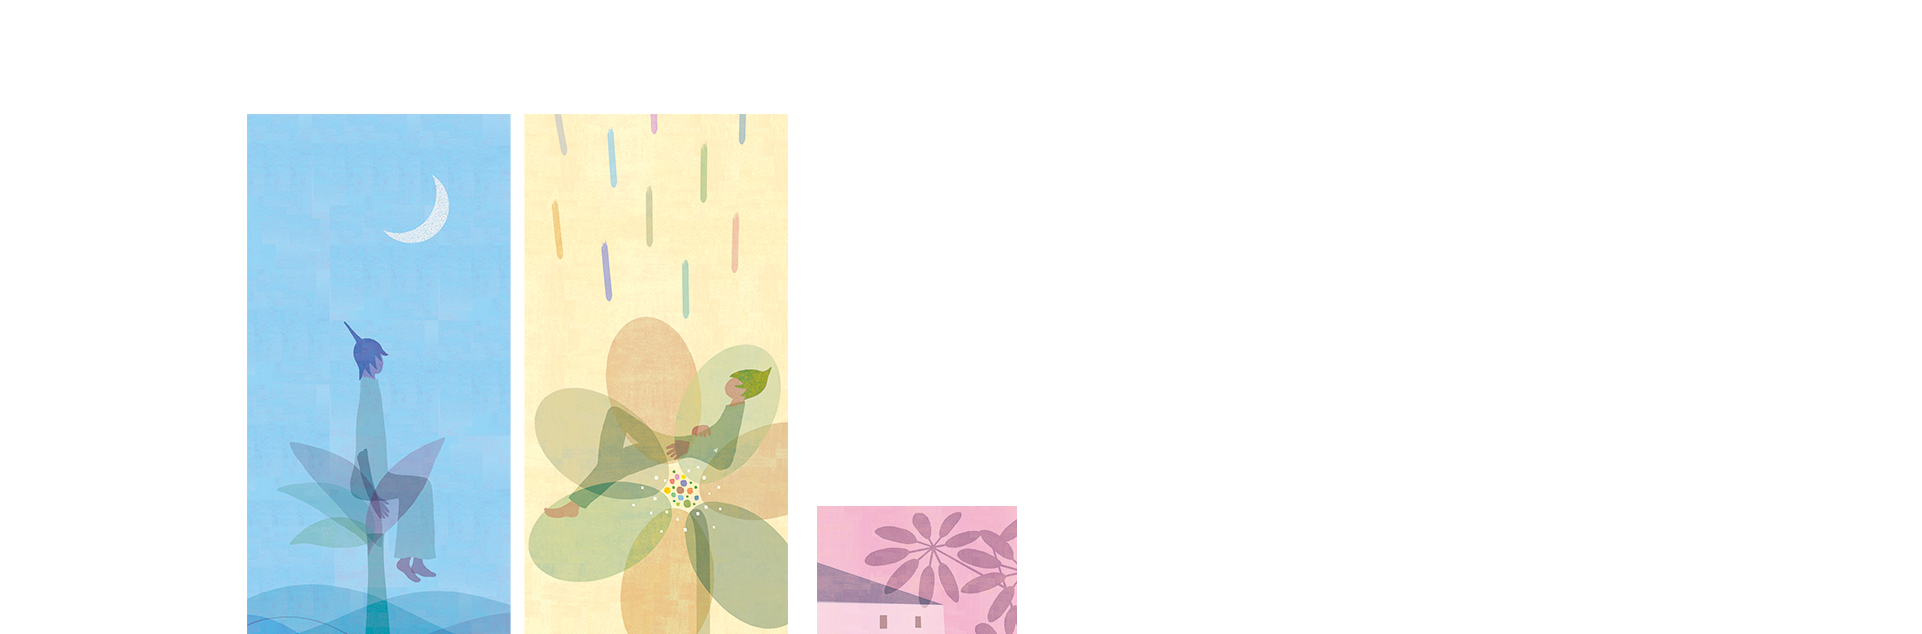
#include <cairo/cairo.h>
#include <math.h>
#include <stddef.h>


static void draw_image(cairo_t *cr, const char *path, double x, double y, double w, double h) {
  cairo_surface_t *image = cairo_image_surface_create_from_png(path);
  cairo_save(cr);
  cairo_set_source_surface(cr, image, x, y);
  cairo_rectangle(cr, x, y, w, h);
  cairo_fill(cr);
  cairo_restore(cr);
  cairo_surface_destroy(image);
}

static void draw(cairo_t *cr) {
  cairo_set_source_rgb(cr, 1, 1, 1);
  cairo_paint(cr);
  draw_image(cr, "images/1.png", 247, 114, 541, 520);
  draw_image(cr, "images/2.png", 817, 506, 200, 128);
}

int main(void) {
  cairo_surface_t *surface = cairo_image_surface_create(CAIRO_FORMAT_RGB24, 1922, 634);
  cairo_t *cr = cairo_create(surface);
  cairo_font_options_t *options = cairo_font_options_create();
  cairo_font_options_set_hint_metrics(options, CAIRO_HINT_METRICS_OFF);
  cairo_font_options_set_hint_style(options, CAIRO_HINT_STYLE_NONE);
  cairo_set_font_options(cr, options);
  cairo_set_miter_limit(cr, 4);
  draw(cr);
  cairo_surface_write_to_png(surface, "out.png");
  cairo_font_options_destroy(options);
  cairo_destroy(cr);
  cairo_surface_destroy(surface);
  return 0;
}
